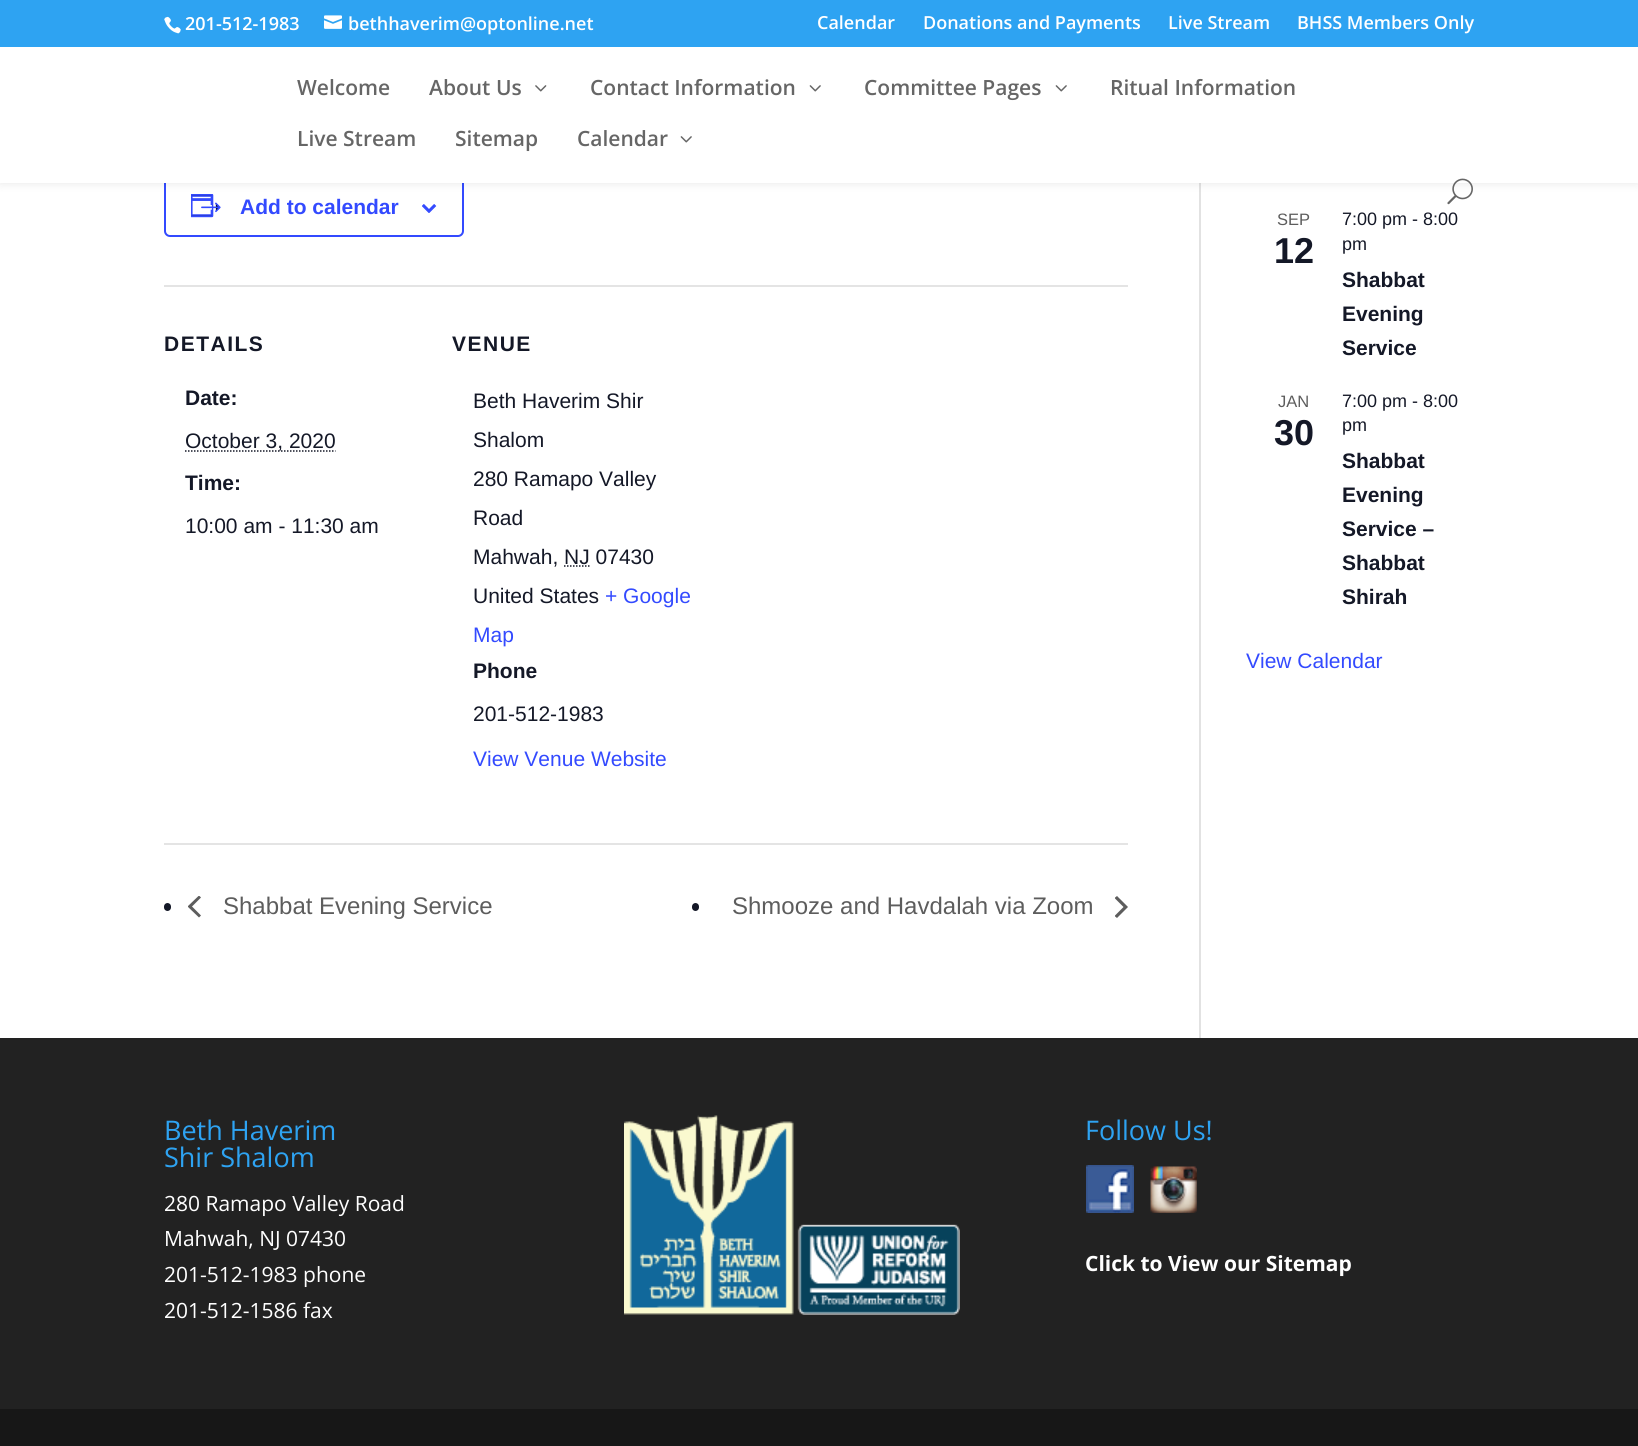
#include <cairo/cairo.h>
#include <math.h>
#include <stddef.h>


static void draw_spaced(cairo_t *cr, double x, double y, const char *s, double letter, double word) {
  cairo_move_to(cr, x, y);
  while (*s) {
    char ch[5] = {0};
    int n = 0;
    do ch[n++] = *s++; while ((*s & 0xC0) == 0x80);
    cairo_show_text(cr, ch);
    cairo_rel_move_to(cr, letter + word * (*ch == ' '), 0);
  }
}

static void rounded_rect(cairo_t *cr, double x, double y, double w, double h, double r) {
  cairo_new_sub_path(cr);
  cairo_arc(cr, x + w - r, y + h - r, r, 0, M_PI / 2);
  cairo_arc(cr, x + r, y + h - r, r, M_PI / 2, M_PI);
  cairo_arc(cr, x + r, y + r, r, M_PI, 1.5 * M_PI);
  cairo_arc(cr, x + w - r, y + r, r, 1.5 * M_PI, 2 * M_PI);
  cairo_close_path(cr);
}

static void draw_shadow(cairo_t *cr, double x, double y, double w, double h, double r, double blur, double alpha) {
  cairo_push_group_with_content(cr, CAIRO_CONTENT_ALPHA);
  cairo_set_operator(cr, CAIRO_OPERATOR_SOURCE);
  for (int i = 15; i >= -15 && fmin(w, h) + blur * i / 3 > 0; i -= 2) {
    double e = blur * i / 6;
    cairo_set_source_rgba(cr, 0, 0, 0, alpha * erfc((i - 1) / 8.5) / 2);
    rounded_rect(cr, x - e, y - e, w + 2 * e, h + 2 * e, fmax(0, fmin(r + e + blur * .6, fmin(w, h) / 2 + e)));
    cairo_fill(cr);
  }
  cairo_pattern_t *soft = cairo_pop_group(cr);
  cairo_mask(cr, soft);
  cairo_pattern_destroy(soft);
}

static void draw_image(cairo_t *cr, const char *path, double x, double y, double w, double h) {
  cairo_surface_t *image = cairo_image_surface_create_from_png(path);
  cairo_save(cr);
  cairo_set_source_surface(cr, image, x, y);
  cairo_rectangle(cr, x, y, w, h);
  cairo_fill(cr);
  cairo_restore(cr);
  cairo_surface_destroy(image);
}

static void draw(cairo_t *cr) {
  cairo_set_source_rgb(cr, 1, 1, 1);
  cairo_paint(cr);
  cairo_set_source_rgb(cr, 226 / 255.0, 226 / 255.0, 226 / 255.0);
  cairo_rectangle(cr, 1199, 183, 2, 855);
  cairo_fill(cr);
  rounded_rect(cr, 165, 178, 298, 58, 5);
  cairo_set_source_rgb(cr, 51 / 255.0, 74 / 255.0, 1);
  cairo_stroke(cr);
  draw_image(cr, "images/6.png", 191, 194, 30, 24);
  cairo_set_source_rgb(cr, 0, 0, 0);
  draw_shadow(cr, 0, 47, 1638, 136, 0, 5, 0.1);
  cairo_set_source_rgb(cr, 46 / 255.0, 163 / 255.0, 242 / 255.0);
  cairo_rectangle(cr, 0, 0, 1638, 47);
  cairo_fill(cr);
  draw_image(cr, "images/1.png", 164, 16, 17, 18);
  draw_image(cr, "images/2.png", 324, 15, 18, 14);
  cairo_set_source_rgb(cr, 1, 1, 1);
  cairo_rectangle(cr, 0, 47, 1638, 136);
  cairo_fill(cr);
  draw_image(cr, "images/3.png", 535, 85, 12, 7);
  draw_image(cr, "images/4.png", 809, 85, 12, 7);
  draw_image(cr, "images/4.png", 1055, 85, 12, 7);
  draw_image(cr, "images/4.png", 680, 136, 12, 7);
  draw_image(cr, "images/5.png", 1447, 178, 26, 27);
  draw_image(cr, "images/7.png", 422, 204, 15, 9);
  cairo_set_source_rgb(cr, 228 / 255.0, 228 / 255.0, 228 / 255.0);
  cairo_rectangle(cr, 164, 285, 964, 2);
  cairo_fill(cr);
  cairo_new_path(cr);
  cairo_move_to(cr, 185, 451);
  cairo_line_to(cr, 335.5, 451);
  cairo_set_source_rgb(cr, 20 / 255.0, 24 / 255.0, 39 / 255.0);
  cairo_set_line_width(cr, 1.5);
  cairo_set_dash(cr, (double[]){1.5, 1.5}, 2, 0);
  cairo_stroke(cr);
  cairo_new_path(cr);
  cairo_move_to(cr, 564, 566);
  cairo_line_to(cr, 589.5, 566);
  cairo_stroke(cr);
  cairo_set_source_rgb(cr, 228 / 255.0, 228 / 255.0, 228 / 255.0);
  cairo_rectangle(cr, 164, 843, 964, 2);
  cairo_fill(cr);
  cairo_set_source_rgb(cr, 20 / 255.0, 24 / 255.0, 39 / 255.0);
  rounded_rect(cr, 164, 903, 7, 8, 3.5);
  cairo_fill(cr);
  cairo_save(cr);
  cairo_rectangle(cr, 188, 896, 13, 22);
  cairo_clip(cr);
  cairo_set_source_rgb(cr, 93 / 255.0, 93 / 255.0, 93 / 255.0);
  cairo_new_path(cr);
  cairo_move_to(cr, 201, 915.5);
  cairo_line_to(cr, 199, 917.5);
  cairo_line_to(cr, 187.5, 906.5);
  cairo_line_to(cr, 199, 895.5);
  cairo_line_to(cr, 201, 897.5);
  cairo_line_to(cr, 192, 906.5);
  cairo_close_path(cr);
  cairo_fill(cr);
  cairo_restore(cr);
  rounded_rect(cr, 692, 903, 7, 8, 3.5);
  cairo_fill(cr);
  cairo_save(cr);
  cairo_rectangle(cr, 1115, 896, 13, 22);
  cairo_clip(cr);
  cairo_set_source_rgb(cr, 93 / 255.0, 93 / 255.0, 93 / 255.0);
  cairo_new_path(cr);
  cairo_move_to(cr, 1114.5, 898);
  cairo_line_to(cr, 1117, 896);
  cairo_line_to(cr, 1128, 907);
  cairo_line_to(cr, 1117, 918);
  cairo_line_to(cr, 1114.5, 916);
  cairo_line_to(cr, 1123.5, 907);
  cairo_close_path(cr);
  cairo_fill(cr);
  cairo_restore(cr);
  cairo_set_source_rgb(cr, 34 / 255.0, 34 / 255.0, 34 / 255.0);
  cairo_rectangle(cr, 0, 1038, 1638, 371);
  cairo_fill(cr);
  draw_image(cr, "images/8.png", 624, 1115, 336, 200);
  draw_image(cr, "images/9.png", 1086, 1165, 48, 48);
  draw_image(cr, "images/10.png", 1150, 1166, 47, 47);
  cairo_set_source_rgb(cr, 23 / 255.0, 23 / 255.0, 23 / 255.0);
  cairo_rectangle(cr, 0, 1409, 1638, 37);
  cairo_fill(cr);
  cairo_select_font_face(cr, "Open Sans SemiBold", CAIRO_FONT_SLANT_NORMAL, CAIRO_FONT_WEIGHT_NORMAL);
  cairo_set_font_size(cr, 18);
  cairo_set_source_rgb(cr, 1, 1, 1);
  cairo_move_to(cr, 185, 30);
  cairo_show_text(cr, "201-512-1983");
  cairo_move_to(cr, 348, 30);
  cairo_show_text(cr, "bethhaverim@optonline.net");
  cairo_move_to(cr, 817, 29);
  cairo_show_text(cr, "Calendar");
  cairo_move_to(cr, 923, 29);
  cairo_show_text(cr, "Donations and Payments");
  cairo_move_to(cr, 1168, 29);
  cairo_show_text(cr, "Live Stream");
  cairo_move_to(cr, 1297, 29);
  cairo_show_text(cr, "BHSS Members Only");
  cairo_set_font_size(cr, 21);
  cairo_set_source_rgb(cr, 102 / 255.0, 102 / 255.0, 102 / 255.0);
  cairo_move_to(cr, 297, 95);
  cairo_show_text(cr, "Welcome");
  cairo_move_to(cr, 429, 95);
  cairo_show_text(cr, "About Us");
  cairo_move_to(cr, 590, 95);
  cairo_show_text(cr, "Contact Information");
  cairo_move_to(cr, 864, 95);
  cairo_show_text(cr, "Committee Pages");
  cairo_move_to(cr, 1110, 95);
  cairo_show_text(cr, "Ritual Information");
  cairo_move_to(cr, 297, 146);
  cairo_show_text(cr, "Live Stream");
  cairo_move_to(cr, 455, 146);
  cairo_show_text(cr, "Sitemap");
  cairo_move_to(cr, 577, 146);
  cairo_show_text(cr, "Calendar");
  cairo_select_font_face(cr, "Liberation Sans", CAIRO_FONT_SLANT_NORMAL, CAIRO_FONT_WEIGHT_BOLD);
  cairo_set_source_rgb(cr, 51 / 255.0, 74 / 255.0, 1);
  cairo_move_to(cr, 240, 214);
  cairo_show_text(cr, "Add to calendar");
  cairo_set_source_rgb(cr, 20 / 255.0, 24 / 255.0, 39 / 255.0);
  draw_spaced(cr, 164, 351, "DETAILS", 1.5, 0);
  cairo_move_to(cr, 185, 405);
  cairo_show_text(cr, "Date:");
  cairo_select_font_face(cr, "Liberation Sans", CAIRO_FONT_SLANT_NORMAL, CAIRO_FONT_WEIGHT_NORMAL);
  cairo_move_to(cr, 185, 448);
  cairo_show_text(cr, "October 3, 2020");
  cairo_select_font_face(cr, "Liberation Sans", CAIRO_FONT_SLANT_NORMAL, CAIRO_FONT_WEIGHT_BOLD);
  cairo_move_to(cr, 185, 490);
  cairo_show_text(cr, "Time:");
  cairo_select_font_face(cr, "Liberation Sans", CAIRO_FONT_SLANT_NORMAL, CAIRO_FONT_WEIGHT_NORMAL);
  cairo_move_to(cr, 185, 533);
  cairo_show_text(cr, "10:00 am - 11:30 am");
  cairo_select_font_face(cr, "Liberation Sans", CAIRO_FONT_SLANT_NORMAL, CAIRO_FONT_WEIGHT_BOLD);
  draw_spaced(cr, 452, 351, "VENUE", 1.5, 0);
  cairo_select_font_face(cr, "Liberation Sans", CAIRO_FONT_SLANT_NORMAL, CAIRO_FONT_WEIGHT_NORMAL);
  cairo_move_to(cr, 473, 408);
  cairo_show_text(cr, "Beth Haverim Shir");
  cairo_move_to(cr, 473, 447);
  cairo_show_text(cr, "Shalom");
  cairo_move_to(cr, 473, 486);
  cairo_show_text(cr, "280 Ramapo Valley");
  cairo_move_to(cr, 473, 525);
  cairo_show_text(cr, "Road");
  cairo_move_to(cr, 473, 564);
  cairo_show_text(cr, "Mahwah, NJ 07430");
  cairo_move_to(cr, 473, 603);
  cairo_show_text(cr, "United States");
  cairo_set_source_rgb(cr, 51 / 255.0, 74 / 255.0, 1);
  cairo_move_to(cr, 605, 603);
  cairo_show_text(cr, "+ Google");
  cairo_move_to(cr, 473, 642);
  cairo_show_text(cr, "Map");
  cairo_select_font_face(cr, "Liberation Sans", CAIRO_FONT_SLANT_NORMAL, CAIRO_FONT_WEIGHT_BOLD);
  cairo_set_source_rgb(cr, 20 / 255.0, 24 / 255.0, 39 / 255.0);
  cairo_move_to(cr, 473, 678);
  cairo_show_text(cr, "Phone");
  cairo_select_font_face(cr, "Liberation Sans", CAIRO_FONT_SLANT_NORMAL, CAIRO_FONT_WEIGHT_NORMAL);
  cairo_move_to(cr, 473, 721);
  cairo_show_text(cr, "201-512-1983");
  cairo_set_source_rgb(cr, 51 / 255.0, 74 / 255.0, 1);
  cairo_move_to(cr, 473, 766);
  cairo_show_text(cr, "View Venue Website");
  cairo_set_font_size(cr, 24);
  cairo_set_source_rgb(cr, 93 / 255.0, 93 / 255.0, 93 / 255.0);
  cairo_move_to(cr, 223, 914);
  cairo_show_text(cr, "Shabbat Evening Service");
  cairo_move_to(cr, 732, 914);
  cairo_show_text(cr, "Shmooze and Havdalah via Zoom");
  cairo_set_font_size(cr, 16.5);
  cairo_move_to(cr, 1277, 225);
  cairo_show_text(cr, "SEP");
  cairo_select_font_face(cr, "Liberation Sans", CAIRO_FONT_SLANT_NORMAL, CAIRO_FONT_WEIGHT_BOLD);
  cairo_set_font_size(cr, 36);
  cairo_set_source_rgb(cr, 20 / 255.0, 24 / 255.0, 39 / 255.0);
  cairo_move_to(cr, 1274, 263);
  cairo_show_text(cr, "12");
  cairo_select_font_face(cr, "Liberation Sans", CAIRO_FONT_SLANT_NORMAL, CAIRO_FONT_WEIGHT_NORMAL);
  cairo_set_font_size(cr, 18);
  cairo_move_to(cr, 1342, 225);
  cairo_show_text(cr, "7:00 pm - 8:00");
  cairo_move_to(cr, 1342, 250);
  cairo_show_text(cr, "pm");
  cairo_select_font_face(cr, "Liberation Sans", CAIRO_FONT_SLANT_NORMAL, CAIRO_FONT_WEIGHT_BOLD);
  cairo_set_font_size(cr, 21);
  cairo_move_to(cr, 1342, 287);
  cairo_show_text(cr, "Shabbat");
  cairo_move_to(cr, 1342, 321);
  cairo_show_text(cr, "Evening");
  cairo_move_to(cr, 1342, 355);
  cairo_show_text(cr, "Service");
  cairo_select_font_face(cr, "Liberation Sans", CAIRO_FONT_SLANT_NORMAL, CAIRO_FONT_WEIGHT_NORMAL);
  cairo_set_font_size(cr, 16.5);
  cairo_set_source_rgb(cr, 93 / 255.0, 93 / 255.0, 93 / 255.0);
  cairo_move_to(cr, 1278, 407);
  cairo_show_text(cr, "JAN");
  cairo_select_font_face(cr, "Liberation Sans", CAIRO_FONT_SLANT_NORMAL, CAIRO_FONT_WEIGHT_BOLD);
  cairo_set_font_size(cr, 36);
  cairo_set_source_rgb(cr, 20 / 255.0, 24 / 255.0, 39 / 255.0);
  cairo_move_to(cr, 1274, 445);
  cairo_show_text(cr, "30");
  cairo_select_font_face(cr, "Liberation Sans", CAIRO_FONT_SLANT_NORMAL, CAIRO_FONT_WEIGHT_NORMAL);
  cairo_set_font_size(cr, 18);
  cairo_move_to(cr, 1342, 407);
  cairo_show_text(cr, "7:00 pm - 8:00");
  cairo_move_to(cr, 1342, 431);
  cairo_show_text(cr, "pm");
  cairo_select_font_face(cr, "Liberation Sans", CAIRO_FONT_SLANT_NORMAL, CAIRO_FONT_WEIGHT_BOLD);
  cairo_set_font_size(cr, 21);
  cairo_move_to(cr, 1342, 468);
  cairo_show_text(cr, "Shabbat");
  cairo_move_to(cr, 1342, 502);
  cairo_show_text(cr, "Evening");
  cairo_move_to(cr, 1342, 536);
  cairo_show_text(cr, "Service –");
  cairo_move_to(cr, 1342, 570);
  cairo_show_text(cr, "Shabbat");
  cairo_move_to(cr, 1342, 604);
  cairo_show_text(cr, "Shirah");
  cairo_select_font_face(cr, "Liberation Sans", CAIRO_FONT_SLANT_NORMAL, CAIRO_FONT_WEIGHT_NORMAL);
  cairo_set_source_rgb(cr, 51 / 255.0, 74 / 255.0, 1);
  cairo_move_to(cr, 1246, 668);
  cairo_show_text(cr, "View Calendar");
  cairo_select_font_face(cr, "Open Sans", CAIRO_FONT_SLANT_NORMAL, CAIRO_FONT_WEIGHT_NORMAL);
  cairo_set_font_size(cr, 27);
  cairo_set_source_rgb(cr, 46 / 255.0, 163 / 255.0, 242 / 255.0);
  cairo_move_to(cr, 164, 1140);
  cairo_show_text(cr, "Beth Haverim");
  cairo_move_to(cr, 164, 1167);
  cairo_show_text(cr, "Shir Shalom");
  cairo_set_font_size(cr, 21);
  cairo_set_source_rgb(cr, 1, 1, 1);
  cairo_move_to(cr, 164, 1211);
  cairo_show_text(cr, "280 Ramapo Valley Road");
  cairo_move_to(cr, 164, 1246);
  cairo_show_text(cr, "Mahwah, NJ 07430");
  cairo_move_to(cr, 164, 1282);
  cairo_show_text(cr, "201-512-1983 phone");
  cairo_move_to(cr, 164, 1318);
  cairo_show_text(cr, "201-512-1586 fax");
  cairo_set_font_size(cr, 27);
  cairo_set_source_rgb(cr, 46 / 255.0, 163 / 255.0, 242 / 255.0);
  cairo_move_to(cr, 1085, 1140);
  cairo_show_text(cr, "Follow Us!");
  cairo_select_font_face(cr, "Open Sans", CAIRO_FONT_SLANT_NORMAL, CAIRO_FONT_WEIGHT_BOLD);
  cairo_set_font_size(cr, 21);
  cairo_set_source_rgb(cr, 1, 1, 1);
  cairo_move_to(cr, 1085, 1271);
  cairo_show_text(cr, "Click to View our Sitemap");
}

int main(void) {
  cairo_surface_t *surface = cairo_image_surface_create(CAIRO_FORMAT_RGB24, 1638, 1446);
  cairo_t *cr = cairo_create(surface);
  cairo_font_options_t *options = cairo_font_options_create();
  cairo_font_options_set_hint_metrics(options, CAIRO_HINT_METRICS_OFF);
  cairo_font_options_set_hint_style(options, CAIRO_HINT_STYLE_NONE);
  cairo_set_font_options(cr, options);
  cairo_set_miter_limit(cr, 4);
  draw(cr);
  cairo_surface_write_to_png(surface, "out.png");
  cairo_font_options_destroy(options);
  cairo_destroy(cr);
  cairo_surface_destroy(surface);
  return 0;
}
